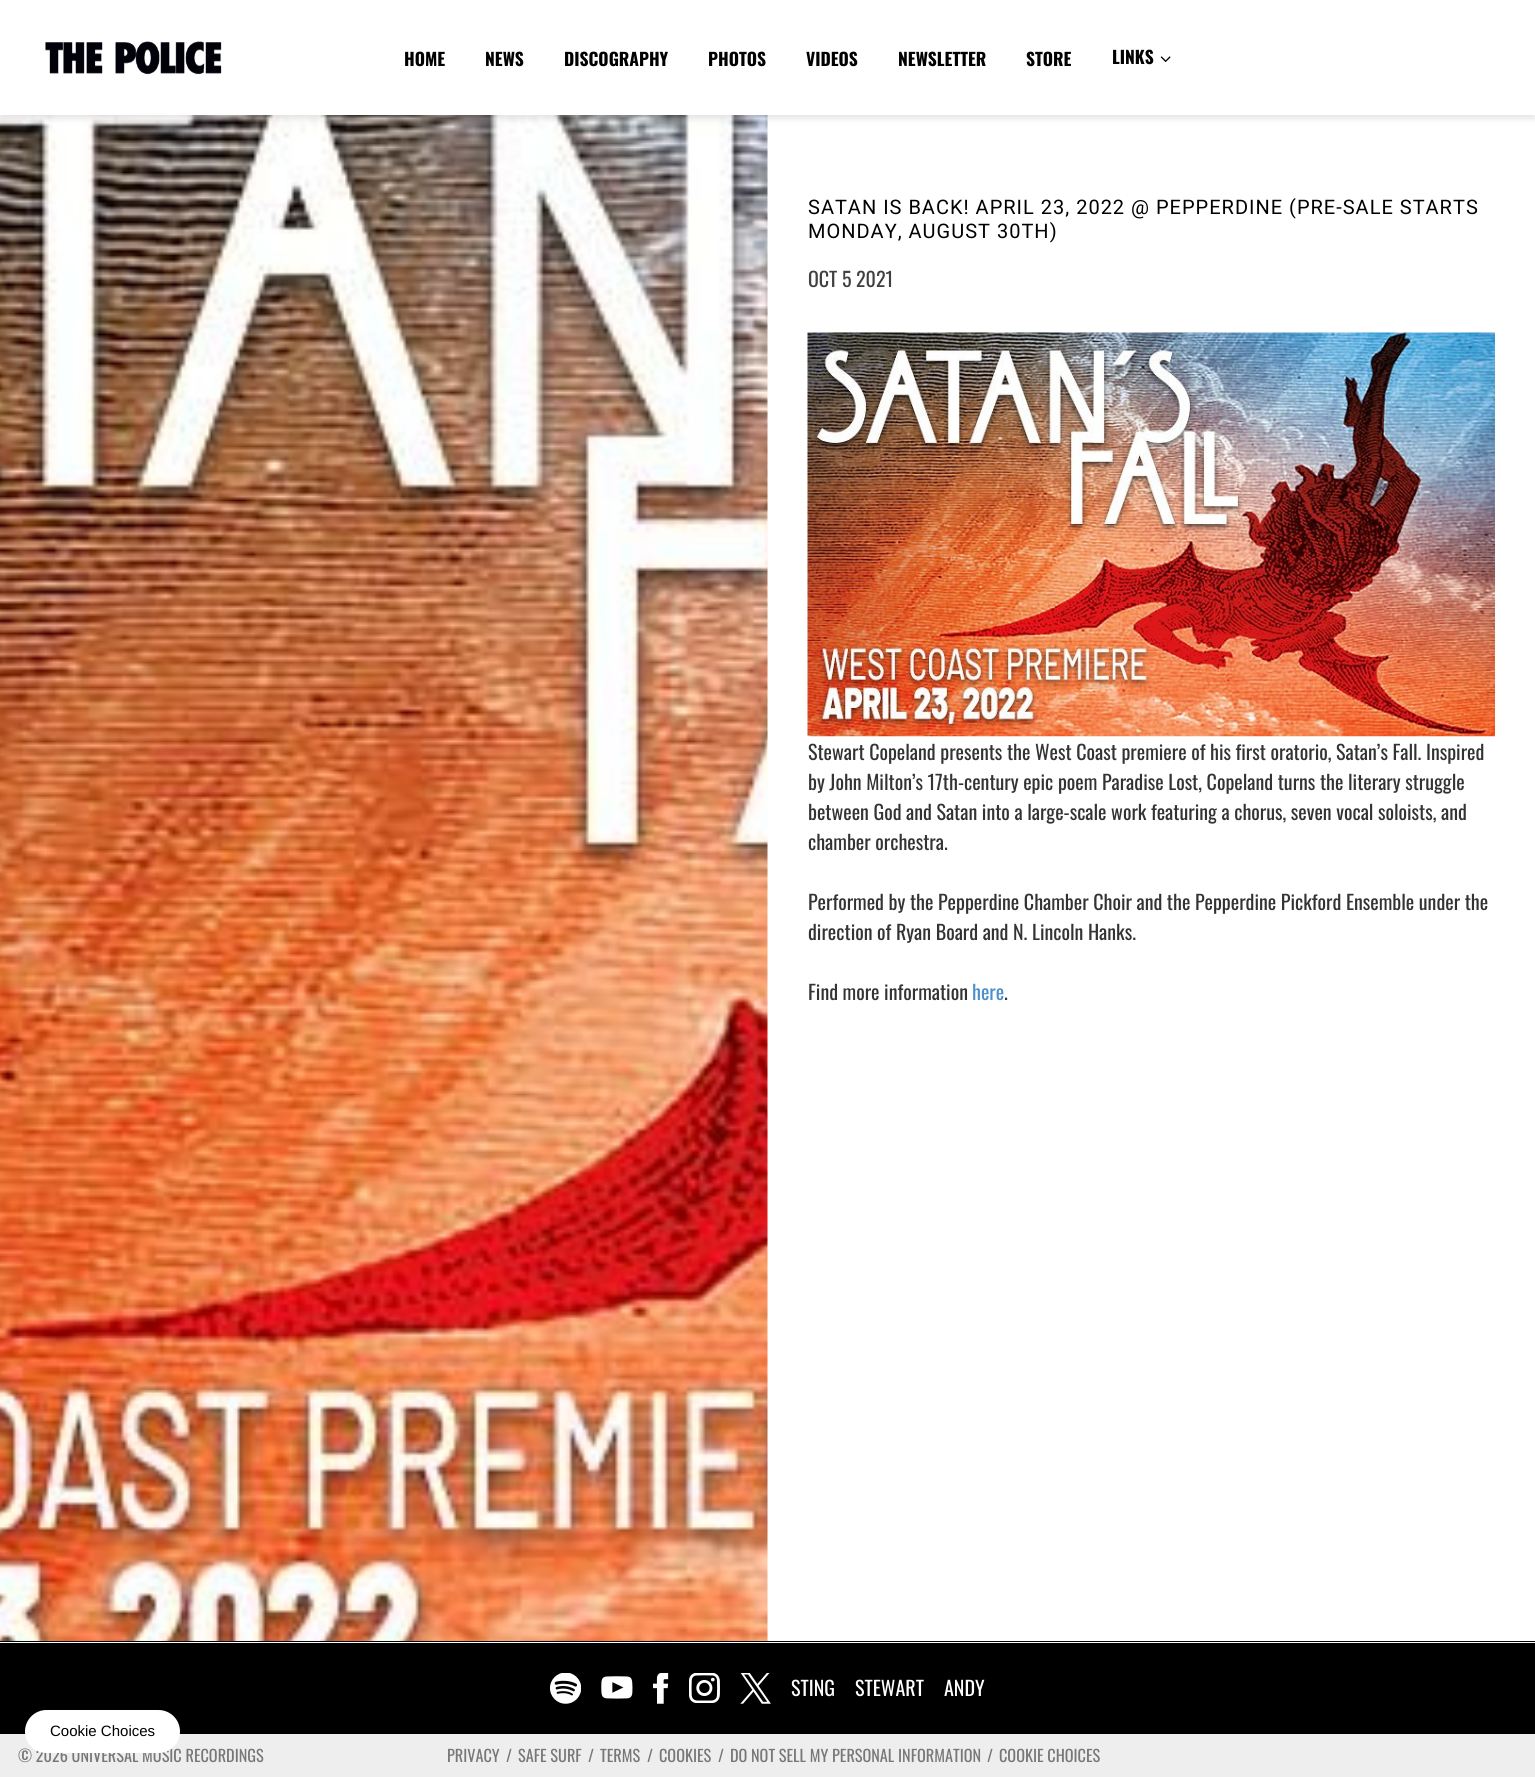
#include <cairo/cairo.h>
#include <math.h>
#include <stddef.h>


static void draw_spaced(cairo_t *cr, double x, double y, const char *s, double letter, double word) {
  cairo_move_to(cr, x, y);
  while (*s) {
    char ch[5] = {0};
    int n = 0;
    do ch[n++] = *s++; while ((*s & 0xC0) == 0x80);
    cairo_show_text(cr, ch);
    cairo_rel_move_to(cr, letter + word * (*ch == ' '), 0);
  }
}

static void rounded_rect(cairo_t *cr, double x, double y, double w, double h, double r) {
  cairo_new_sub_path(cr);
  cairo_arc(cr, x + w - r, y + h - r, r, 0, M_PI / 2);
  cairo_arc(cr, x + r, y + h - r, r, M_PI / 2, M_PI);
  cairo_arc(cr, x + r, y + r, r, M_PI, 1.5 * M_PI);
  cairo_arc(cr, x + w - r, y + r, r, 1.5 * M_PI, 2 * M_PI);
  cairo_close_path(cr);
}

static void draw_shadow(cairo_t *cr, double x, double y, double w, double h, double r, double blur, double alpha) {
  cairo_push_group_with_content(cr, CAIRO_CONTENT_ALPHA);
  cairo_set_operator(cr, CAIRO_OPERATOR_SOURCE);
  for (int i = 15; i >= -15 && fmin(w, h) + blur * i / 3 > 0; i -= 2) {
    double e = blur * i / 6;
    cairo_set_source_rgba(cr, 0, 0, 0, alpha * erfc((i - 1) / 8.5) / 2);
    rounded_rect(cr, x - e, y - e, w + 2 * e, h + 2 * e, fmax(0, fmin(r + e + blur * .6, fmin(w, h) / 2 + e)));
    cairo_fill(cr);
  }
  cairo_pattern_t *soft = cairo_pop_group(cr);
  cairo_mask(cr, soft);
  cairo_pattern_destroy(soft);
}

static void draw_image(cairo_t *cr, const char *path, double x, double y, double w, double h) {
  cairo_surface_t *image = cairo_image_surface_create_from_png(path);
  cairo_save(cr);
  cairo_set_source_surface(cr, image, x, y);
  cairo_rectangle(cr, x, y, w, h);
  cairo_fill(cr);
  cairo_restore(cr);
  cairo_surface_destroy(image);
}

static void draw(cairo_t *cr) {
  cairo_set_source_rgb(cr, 1, 1, 1);
  cairo_paint(cr);
  draw_image(cr, "images/3.png", 0, 115, 768, 1526);
  cairo_set_source_rgb(cr, 0, 0, 0);
  draw_shadow(cr, 0, 4, 1535, 115, 0, 3, 0.1);
  cairo_set_source_rgb(cr, 1, 1, 1);
  cairo_rectangle(cr, 0, 0, 1535, 115);
  cairo_fill(cr);
  draw_image(cr, "images/1.png", 45, 41, 177, 34);
  draw_image(cr, "images/2.png", 1160, 56, 11, 6);
  draw_image(cr, "images/4.png", 807, 332, 688, 405);
  cairo_set_source_rgb(cr, 0, 0, 0);
  cairo_rectangle(cr, 0, 1641, 1535, 1);
  cairo_fill(cr);
  cairo_rectangle(cr, 0, 1643, 1535, 91);
  cairo_fill(cr);
  draw_image(cr, "images/5.png", 550, 1673, 31, 31);
  draw_image(cr, "images/6.png", 601, 1676, 32, 23);
  draw_image(cr, "images/7.png", 653, 1673, 16, 31);
  draw_image(cr, "images/8.png", 689, 1673, 31, 30);
  draw_image(cr, "images/9.png", 740, 1673, 31, 31);
  cairo_set_source_rgb(cr, 238 / 255.0, 238 / 255.0, 238 / 255.0);
  cairo_rectangle(cr, 0, 1734, 1535, 43);
  cairo_fill(cr);
  cairo_select_font_face(cr, "Oswald", CAIRO_FONT_SLANT_NORMAL, CAIRO_FONT_WEIGHT_BOLD);
  cairo_set_font_size(cr, 17.5);
  cairo_set_source_rgb(cr, 0, 0, 0);
  cairo_move_to(cr, 404, 66);
  cairo_show_text(cr, "HOME");
  cairo_move_to(cr, 485, 66);
  cairo_show_text(cr, "NEWS");
  cairo_move_to(cr, 564, 66);
  cairo_show_text(cr, "DISCOGRAPHY");
  cairo_move_to(cr, 708, 66);
  cairo_show_text(cr, "PHOTOS");
  cairo_move_to(cr, 806, 66);
  cairo_show_text(cr, "VIDEOS");
  cairo_move_to(cr, 898, 66);
  cairo_show_text(cr, "NEWSLETTER");
  cairo_move_to(cr, 1026, 66);
  cairo_show_text(cr, "STORE");
  cairo_move_to(cr, 1112, 64);
  cairo_show_text(cr, "LINKS");
  cairo_select_font_face(cr, "Roboto", CAIRO_FONT_SLANT_NORMAL, CAIRO_FONT_WEIGHT_NORMAL);
  cairo_set_font_size(cr, 20);
  draw_spaced(cr, 808, 214, "SATAN IS BACK! APRIL 23, 2022 @ PEPPERDINE (PRE-SALE STARTS", 1, 0);
  draw_spaced(cr, 808, 238, "MONDAY, AUGUST 30TH)", 1, 0);
  cairo_select_font_face(cr, "Oswald", CAIRO_FONT_SLANT_NORMAL, CAIRO_FONT_WEIGHT_NORMAL);
  cairo_set_source_rgb(cr, 64 / 255.0, 64 / 255.0, 64 / 255.0);
  cairo_move_to(cr, 808, 287);
  cairo_show_text(cr, "OCT 5 2021");
  cairo_set_source_rgb(cr, 51 / 255.0, 51 / 255.0, 51 / 255.0);
  cairo_move_to(cr, 808, 760);
  cairo_show_text(cr, "Stewart Copeland presents the West Coast premiere of his first oratorio, Satan’s Fall. Inspired");
  cairo_move_to(cr, 808, 790);
  cairo_show_text(cr, "by John Milton’s 17th-century epic poem Paradise Lost, Copeland turns the literary struggle");
  cairo_move_to(cr, 808, 820);
  cairo_show_text(cr, "between God and Satan into a large-scale work featuring a chorus, seven vocal soloists, and");
  cairo_move_to(cr, 808, 850);
  cairo_show_text(cr, "chamber orchestra.");
  cairo_move_to(cr, 808, 910);
  cairo_show_text(cr, "Performed by the Pepperdine Chamber Choir and the Pepperdine Pickford Ensemble under the");
  cairo_move_to(cr, 808, 940);
  cairo_show_text(cr, "direction of Ryan Board and N. Lincoln Hanks.");
  cairo_move_to(cr, 808, 1000);
  cairo_show_text(cr, "Find more information");
  cairo_set_source_rgb(cr, 75 / 255.0, 143 / 255.0, 203 / 255.0);
  cairo_move_to(cr, 972, 1000);
  cairo_show_text(cr, "here");
  cairo_set_source_rgb(cr, 51 / 255.0, 51 / 255.0, 51 / 255.0);
  cairo_move_to(cr, 1004, 1000);
  cairo_show_text(cr, ".");
  cairo_set_source_rgb(cr, 1, 1, 1);
  cairo_move_to(cr, 791, 1696);
  cairo_show_text(cr, "STING");
  cairo_move_to(cr, 855, 1696);
  cairo_show_text(cr, "STEWART");
  cairo_move_to(cr, 944, 1696);
  cairo_show_text(cr, "ANDY");
  cairo_set_font_size(cr, 16.25);
  cairo_set_source_rgb(cr, 119 / 255.0, 119 / 255.0, 119 / 255.0);
  cairo_move_to(cr, 18, 1762);
  cairo_show_text(cr, "© 2026 UNIVERSAL MUSIC RECORDINGS");
  cairo_move_to(cr, 447, 1762);
  cairo_show_text(cr, "PRIVACY");
  cairo_move_to(cr, 506, 1762);
  cairo_show_text(cr, "/");
  cairo_move_to(cr, 518, 1762);
  cairo_show_text(cr, "SAFE SURF");
  cairo_move_to(cr, 588, 1762);
  cairo_show_text(cr, "/");
  cairo_move_to(cr, 600, 1762);
  cairo_show_text(cr, "TERMS");
  cairo_move_to(cr, 647, 1762);
  cairo_show_text(cr, "/");
  cairo_move_to(cr, 659, 1762);
  cairo_show_text(cr, "COOKIES");
  cairo_move_to(cr, 718, 1762);
  cairo_show_text(cr, "/");
  cairo_move_to(cr, 730, 1762);
  cairo_show_text(cr, "DO NOT SELL MY PERSONAL INFORMATION");
  cairo_move_to(cr, 987, 1762);
  cairo_show_text(cr, "/");
  cairo_move_to(cr, 999, 1762);
  cairo_show_text(cr, "COOKIE CHOICES");
  cairo_set_source_rgb(cr, 1, 1, 1);
  rounded_rect(cr, 25, 1710, 155, 43, 21.5);
  cairo_fill(cr);
  cairo_select_font_face(cr, "Liberation Sans", CAIRO_FONT_SLANT_NORMAL, CAIRO_FONT_WEIGHT_NORMAL);
  cairo_set_font_size(cr, 15);
  cairo_set_source_rgb(cr, 0, 0, 0);
  cairo_move_to(cr, 50, 1736);
  cairo_show_text(cr, "Cookie Choices");
}

int main(void) {
  cairo_surface_t *surface = cairo_image_surface_create(CAIRO_FORMAT_RGB24, 1535, 1777);
  cairo_t *cr = cairo_create(surface);
  cairo_font_options_t *options = cairo_font_options_create();
  cairo_font_options_set_hint_metrics(options, CAIRO_HINT_METRICS_OFF);
  cairo_font_options_set_hint_style(options, CAIRO_HINT_STYLE_NONE);
  cairo_set_font_options(cr, options);
  cairo_set_miter_limit(cr, 4);
  draw(cr);
  cairo_surface_write_to_png(surface, "out.png");
  cairo_font_options_destroy(options);
  cairo_destroy(cr);
  cairo_surface_destroy(surface);
  return 0;
}
